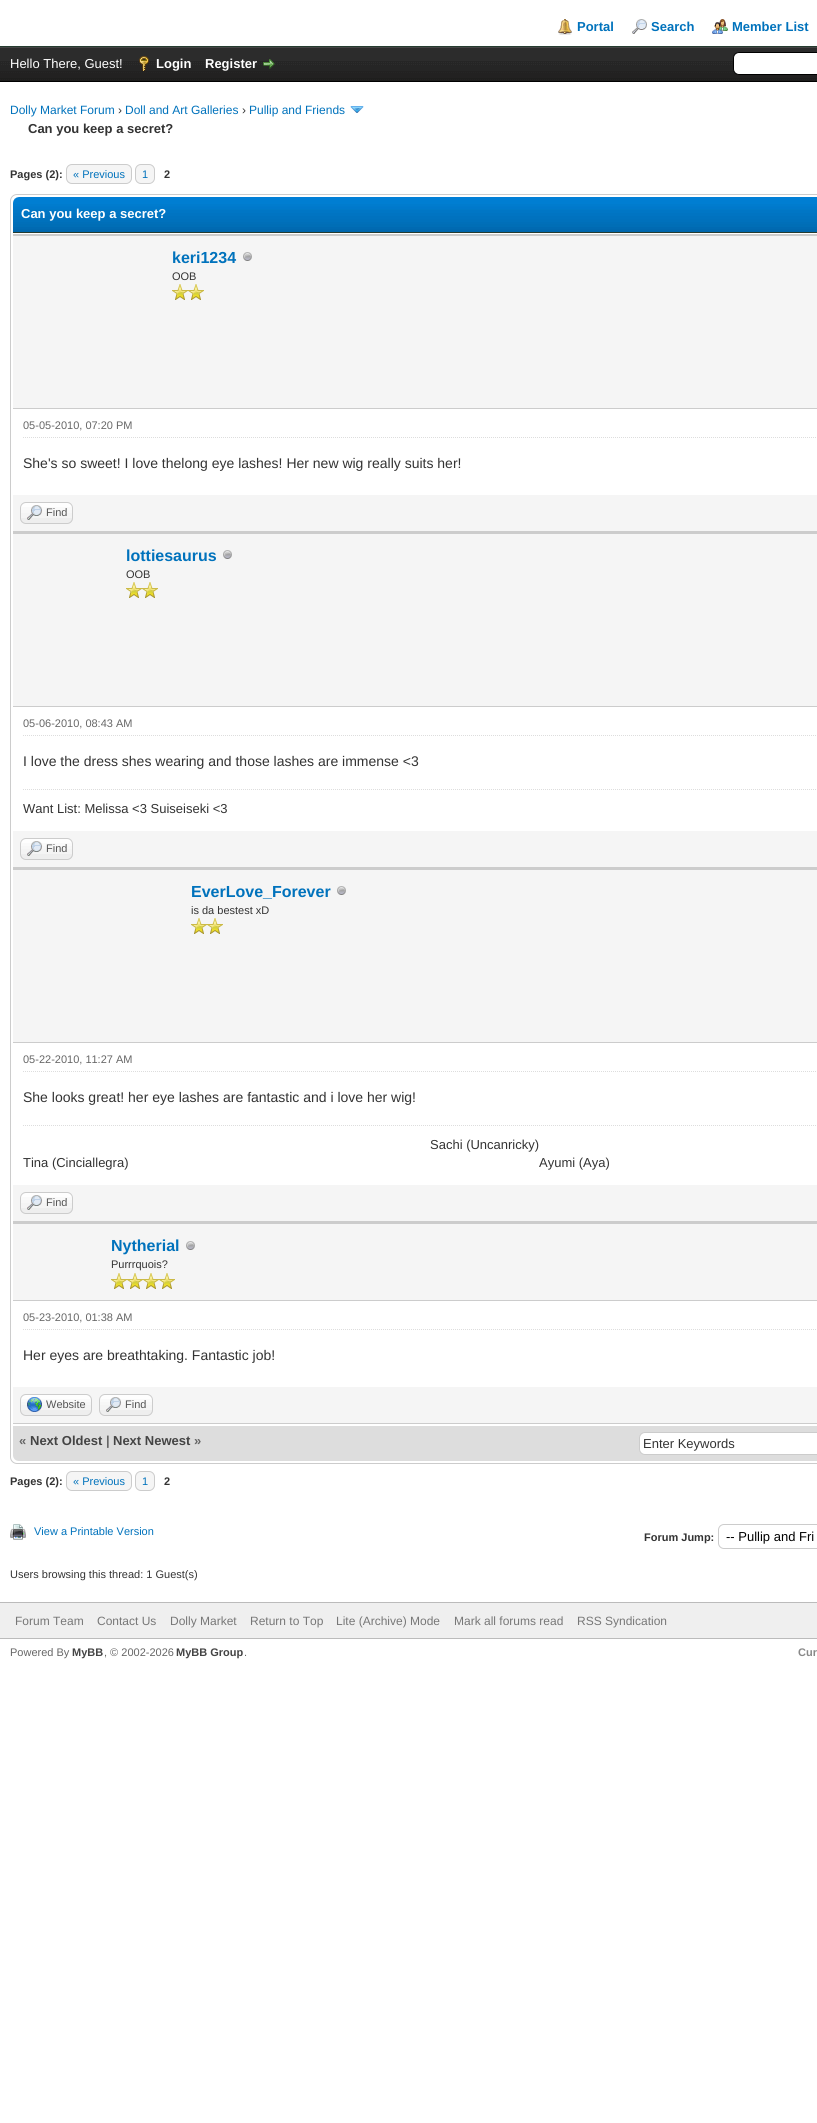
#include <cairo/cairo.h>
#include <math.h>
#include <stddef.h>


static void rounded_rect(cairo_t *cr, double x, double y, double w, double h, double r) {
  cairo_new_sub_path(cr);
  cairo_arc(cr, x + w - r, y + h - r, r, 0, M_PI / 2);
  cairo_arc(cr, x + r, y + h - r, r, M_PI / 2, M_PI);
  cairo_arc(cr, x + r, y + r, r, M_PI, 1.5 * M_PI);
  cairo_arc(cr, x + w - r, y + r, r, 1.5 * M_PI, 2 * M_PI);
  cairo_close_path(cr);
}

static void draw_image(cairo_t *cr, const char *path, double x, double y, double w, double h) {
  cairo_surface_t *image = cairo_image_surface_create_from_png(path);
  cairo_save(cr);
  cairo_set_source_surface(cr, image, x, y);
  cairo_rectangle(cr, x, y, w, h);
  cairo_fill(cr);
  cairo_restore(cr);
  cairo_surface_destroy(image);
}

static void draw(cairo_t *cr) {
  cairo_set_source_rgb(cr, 1, 1, 1);
  cairo_paint(cr);
  cairo_set_source_rgb(cr, 38 / 255.0, 60 / 255.0, 48 / 255.0);
  cairo_rectangle(cr, 0, 46, 817, 1);
  cairo_fill(cr);
  draw_image(cr, "images/1.png", 558, 19, 14, 16);
  draw_image(cr, "images/2.png", 632, 19, 15, 15);
  draw_image(cr, "images/3.png", 712, 19, 16, 15);
  draw_image(cr, "images/4.png", 0, 48, 817, 33);
  cairo_set_source_rgb(cr, 68 / 255.0, 68 / 255.0, 68 / 255.0);
  cairo_rectangle(cr, 0, 47, 817, 1);
  cairo_fill(cr);
  cairo_set_source_rgb(cr, 0, 0, 0);
  cairo_rectangle(cr, 0, 81, 817, 1);
  cairo_fill(cr);
  draw_image(cr, "images/5.png", 139, 56, 10, 15);
  draw_image(cr, "images/6.png", 263, 59, 12, 10);
  cairo_set_source_rgb(cr, 1, 1, 1);
  rounded_rect(cr, 733.5, 52.5, 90, 22, 5.5);
  cairo_fill_preserve(cr);
  cairo_set_source_rgb(cr, 0, 0, 0);
  cairo_set_line_width(cr, 1);
  cairo_stroke(cr);
  draw_image(cr, "images/7.png", 350, 106, 14, 7);
  cairo_set_source_rgb(cr, 245 / 255.0, 245 / 255.0, 245 / 255.0);
  rounded_rect(cr, 66.5, 164.5, 65, 19, 5.5);
  cairo_fill_preserve(cr);
  cairo_set_source_rgb(cr, 204 / 255.0, 204 / 255.0, 204 / 255.0);
  cairo_stroke(cr);
  cairo_set_source_rgb(cr, 245 / 255.0, 245 / 255.0, 245 / 255.0);
  rounded_rect(cr, 135.5, 164.5, 19, 19, 5.5);
  cairo_fill_preserve(cr);
  cairo_set_source_rgb(cr, 204 / 255.0, 204 / 255.0, 204 / 255.0);
  cairo_stroke(cr);
  rounded_rect(cr, 10.5, 194.5, 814, 1269, 6.5);
  cairo_stroke(cr);
  draw_image(cr, "images/8.png", 13, 197, 804, 35);
  cairo_set_source_rgb(cr, 38 / 255.0, 60 / 255.0, 48 / 255.0);
  cairo_rectangle(cr, 13, 232, 804, 1);
  cairo_fill(cr);
  cairo_set_source_rgb(cr, 245 / 255.0, 245 / 255.0, 245 / 255.0);
  cairo_rectangle(cr, 13, 236, 804, 172);
  cairo_fill(cr);
  cairo_set_source_rgb(cr, 204 / 255.0, 204 / 255.0, 204 / 255.0);
  cairo_rectangle(cr, 13, 234, 804, 2);
  cairo_fill(cr);
  cairo_rectangle(cr, 13, 408, 804, 1);
  cairo_fill(cr);
  draw_image(cr, "images/9.png", 243, 252, 9, 9);
  draw_image(cr, "images/10.png", 172, 284, 16, 16);
  draw_image(cr, "images/10.png", 188, 284, 16, 16);
  cairo_new_path(cr);
  cairo_move_to(cr, 23, 437.5);
  cairo_line_to(cr, 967, 437.5);
  cairo_set_source_rgb(cr, 221 / 255.0, 221 / 255.0, 221 / 255.0);
  cairo_set_dash(cr, (double[]){1, 1}, 2, 0);
  cairo_stroke(cr);
  cairo_set_source_rgb(cr, 245 / 255.0, 245 / 255.0, 245 / 255.0);
  cairo_rectangle(cr, 13, 495, 804, 36);
  cairo_fill(cr);
  cairo_set_source_rgb(cr, 204 / 255.0, 204 / 255.0, 204 / 255.0);
  cairo_rectangle(cr, 13, 531, 804, 3);
  cairo_fill(cr);
  cairo_set_source_rgb(cr, 238 / 255.0, 238 / 255.0, 238 / 255.0);
  rounded_rect(cr, 20, 502, 53, 22, 6);
  cairo_fill(cr);
  draw_image(cr, "images/11.png", 20, 503, 53, 15);
  rounded_rect(cr, 20.5, 502.5, 52, 21, 5.5);
  cairo_set_source_rgb(cr, 204 / 255.0, 204 / 255.0, 204 / 255.0);
  cairo_set_dash(cr, NULL, 0, 0);
  cairo_stroke(cr);
  draw_image(cr, "images/12.png", 27, 505, 15, 15);
  cairo_set_source_rgb(cr, 245 / 255.0, 245 / 255.0, 245 / 255.0);
  cairo_rectangle(cr, 13, 534, 804, 172);
  cairo_fill(cr);
  cairo_set_source_rgb(cr, 204 / 255.0, 204 / 255.0, 204 / 255.0);
  cairo_rectangle(cr, 13, 706, 804, 1);
  cairo_fill(cr);
  draw_image(cr, "images/9.png", 223, 550, 9, 9);
  draw_image(cr, "images/10.png", 126, 582, 16, 16);
  draw_image(cr, "images/10.png", 142, 582, 16, 16);
  cairo_new_path(cr);
  cairo_move_to(cr, 23, 735.5);
  cairo_line_to(cr, 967, 735.5);
  cairo_set_source_rgb(cr, 221 / 255.0, 221 / 255.0, 221 / 255.0);
  cairo_set_dash(cr, (double[]){1, 1}, 2, 0);
  cairo_stroke(cr);
  cairo_new_path(cr);
  cairo_move_to(cr, 23, 789.5);
  cairo_line_to(cr, 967, 789.5);
  cairo_stroke(cr);
  cairo_set_source_rgb(cr, 245 / 255.0, 245 / 255.0, 245 / 255.0);
  cairo_rectangle(cr, 13, 831, 804, 36);
  cairo_fill(cr);
  cairo_set_source_rgb(cr, 204 / 255.0, 204 / 255.0, 204 / 255.0);
  cairo_rectangle(cr, 13, 867, 804, 3);
  cairo_fill(cr);
  cairo_set_source_rgb(cr, 238 / 255.0, 238 / 255.0, 238 / 255.0);
  rounded_rect(cr, 20, 838, 53, 22, 6);
  cairo_fill(cr);
  draw_image(cr, "images/11.png", 20, 839, 53, 15);
  rounded_rect(cr, 20.5, 838.5, 52, 21, 5.5);
  cairo_set_source_rgb(cr, 204 / 255.0, 204 / 255.0, 204 / 255.0);
  cairo_set_dash(cr, NULL, 0, 0);
  cairo_stroke(cr);
  draw_image(cr, "images/12.png", 27, 841, 15, 15);
  cairo_set_source_rgb(cr, 245 / 255.0, 245 / 255.0, 245 / 255.0);
  cairo_rectangle(cr, 13, 870, 804, 172);
  cairo_fill(cr);
  cairo_set_source_rgb(cr, 204 / 255.0, 204 / 255.0, 204 / 255.0);
  cairo_rectangle(cr, 13, 1042, 804, 1);
  cairo_fill(cr);
  draw_image(cr, "images/9.png", 337, 886, 9, 9);
  draw_image(cr, "images/10.png", 191, 918, 16, 16);
  draw_image(cr, "images/10.png", 207, 918, 16, 16);
  cairo_new_path(cr);
  cairo_move_to(cr, 23, 1071.5);
  cairo_line_to(cr, 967, 1071.5);
  cairo_set_source_rgb(cr, 221 / 255.0, 221 / 255.0, 221 / 255.0);
  cairo_set_dash(cr, (double[]){1, 1}, 2, 0);
  cairo_stroke(cr);
  cairo_new_path(cr);
  cairo_move_to(cr, 23, 1125.5);
  cairo_line_to(cr, 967, 1125.5);
  cairo_stroke(cr);
  cairo_set_source_rgb(cr, 245 / 255.0, 245 / 255.0, 245 / 255.0);
  cairo_rectangle(cr, 13, 1185, 804, 36);
  cairo_fill(cr);
  cairo_set_source_rgb(cr, 204 / 255.0, 204 / 255.0, 204 / 255.0);
  cairo_rectangle(cr, 13, 1221, 804, 3);
  cairo_fill(cr);
  cairo_set_source_rgb(cr, 238 / 255.0, 238 / 255.0, 238 / 255.0);
  rounded_rect(cr, 20, 1192, 53, 22, 6);
  cairo_fill(cr);
  draw_image(cr, "images/11.png", 20, 1193, 53, 15);
  rounded_rect(cr, 20.5, 1192.5, 52, 21, 5.5);
  cairo_set_source_rgb(cr, 204 / 255.0, 204 / 255.0, 204 / 255.0);
  cairo_set_dash(cr, NULL, 0, 0);
  cairo_stroke(cr);
  draw_image(cr, "images/12.png", 27, 1195, 15, 15);
  cairo_set_source_rgb(cr, 245 / 255.0, 245 / 255.0, 245 / 255.0);
  cairo_rectangle(cr, 13, 1224, 804, 76);
  cairo_fill(cr);
  cairo_set_source_rgb(cr, 204 / 255.0, 204 / 255.0, 204 / 255.0);
  cairo_rectangle(cr, 13, 1300, 804, 1);
  cairo_fill(cr);
  draw_image(cr, "images/9.png", 186, 1241, 9, 9);
  draw_image(cr, "images/10.png", 111, 1273, 16, 16);
  draw_image(cr, "images/10.png", 127, 1273, 16, 16);
  draw_image(cr, "images/10.png", 143, 1273, 16, 16);
  draw_image(cr, "images/10.png", 159, 1273, 16, 16);
  cairo_new_path(cr);
  cairo_move_to(cr, 23, 1329.5);
  cairo_line_to(cr, 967, 1329.5);
  cairo_set_source_rgb(cr, 221 / 255.0, 221 / 255.0, 221 / 255.0);
  cairo_set_dash(cr, (double[]){1, 1}, 2, 0);
  cairo_stroke(cr);
  cairo_set_source_rgb(cr, 245 / 255.0, 245 / 255.0, 245 / 255.0);
  cairo_rectangle(cr, 13, 1387, 804, 36);
  cairo_fill(cr);
  cairo_set_source_rgb(cr, 204 / 255.0, 204 / 255.0, 204 / 255.0);
  cairo_rectangle(cr, 13, 1423, 804, 1);
  cairo_fill(cr);
  cairo_set_source_rgb(cr, 238 / 255.0, 238 / 255.0, 238 / 255.0);
  rounded_rect(cr, 20, 1394, 72, 22, 6);
  cairo_fill(cr);
  draw_image(cr, "images/13.png", 20, 1395, 72, 15);
  rounded_rect(cr, 20.5, 1394.5, 71, 21, 5.5);
  cairo_set_source_rgb(cr, 204 / 255.0, 204 / 255.0, 204 / 255.0);
  cairo_set_dash(cr, NULL, 0, 0);
  cairo_stroke(cr);
  draw_image(cr, "images/14.png", 27, 1397, 15, 15);
  cairo_set_source_rgb(cr, 238 / 255.0, 238 / 255.0, 238 / 255.0);
  rounded_rect(cr, 99, 1394, 54, 22, 6);
  cairo_fill(cr);
  draw_image(cr, "images/15.png", 99, 1395, 54, 15);
  rounded_rect(cr, 99.5, 1394.5, 53, 21, 5.5);
  cairo_set_source_rgb(cr, 204 / 255.0, 204 / 255.0, 204 / 255.0);
  cairo_stroke(cr);
  draw_image(cr, "images/12.png", 106, 1397, 15, 15);
  cairo_set_source_rgb(cr, 221 / 255.0, 221 / 255.0, 221 / 255.0);
  cairo_new_path(cr);
  cairo_move_to(cr, 13, 1425);
  cairo_line_to(cr, 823, 1425);
  cairo_line_to(cr, 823, 1455);
  cairo_curve_to(cr, 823, 1458.5, 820.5, 1461, 817, 1461);
  cairo_line_to(cr, 19, 1461);
  cairo_curve_to(cr, 15.5, 1461, 13, 1458.5, 13, 1455);
  cairo_close_path(cr);
  cairo_fill(cr);
  cairo_set_source_rgb(cr, 1, 1, 1);
  cairo_rectangle(cr, 13, 1425, 804, 1);
  cairo_fill(cr);
  rounded_rect(cr, 639.5, 1432.5, 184, 22, 5.5);
  cairo_fill_preserve(cr);
  cairo_set_source_rgb(cr, 204 / 255.0, 204 / 255.0, 204 / 255.0);
  cairo_stroke(cr);
  cairo_set_source_rgb(cr, 245 / 255.0, 245 / 255.0, 245 / 255.0);
  rounded_rect(cr, 66.5, 1471.5, 65, 19, 5.5);
  cairo_fill_preserve(cr);
  cairo_set_source_rgb(cr, 204 / 255.0, 204 / 255.0, 204 / 255.0);
  cairo_stroke(cr);
  cairo_set_source_rgb(cr, 245 / 255.0, 245 / 255.0, 245 / 255.0);
  rounded_rect(cr, 135.5, 1471.5, 19, 19, 5.5);
  cairo_fill_preserve(cr);
  cairo_set_source_rgb(cr, 204 / 255.0, 204 / 255.0, 204 / 255.0);
  cairo_stroke(cr);
  draw_image(cr, "images/16.png", 10, 1524, 16, 16);
  rounded_rect(cr, 718.5, 1524.5, 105, 24, 5.5);
  cairo_stroke(cr);
  cairo_set_source_rgb(cr, 239 / 255.0, 239 / 255.0, 239 / 255.0);
  cairo_rectangle(cr, 0, 1603, 817, 35);
  cairo_fill(cr);
  cairo_set_source_rgb(cr, 187 / 255.0, 187 / 255.0, 187 / 255.0);
  cairo_rectangle(cr, 0, 1602, 817, 1);
  cairo_fill(cr);
  cairo_rectangle(cr, 0, 1638, 817, 1);
  cairo_fill(cr);
  cairo_select_font_face(cr, "Liberation Sans", CAIRO_FONT_SLANT_NORMAL, CAIRO_FONT_WEIGHT_BOLD);
  cairo_set_font_size(cr, 13);
  cairo_set_source_rgb(cr, 0, 114 / 255.0, 188 / 255.0);
  cairo_move_to(cr, 577, 31);
  cairo_show_text(cr, "Portal");
  cairo_move_to(cr, 651, 31);
  cairo_show_text(cr, "Search");
  cairo_move_to(cr, 732, 31);
  cairo_show_text(cr, "Member List");
  cairo_select_font_face(cr, "Liberation Sans", CAIRO_FONT_SLANT_NORMAL, CAIRO_FONT_WEIGHT_NORMAL);
  cairo_set_source_rgb(cr, 1, 1, 1);
  cairo_move_to(cr, 10, 68);
  cairo_show_text(cr, "Hello There, Guest!");
  cairo_select_font_face(cr, "Liberation Sans", CAIRO_FONT_SLANT_NORMAL, CAIRO_FONT_WEIGHT_BOLD);
  cairo_move_to(cr, 156, 68);
  cairo_show_text(cr, "Login");
  cairo_move_to(cr, 205, 68);
  cairo_show_text(cr, "Register");
  cairo_select_font_face(cr, "Liberation Sans", CAIRO_FONT_SLANT_NORMAL, CAIRO_FONT_WEIGHT_NORMAL);
  cairo_set_font_size(cr, 12);
  cairo_set_source_rgb(cr, 0, 114 / 255.0, 188 / 255.0);
  cairo_move_to(cr, 10, 114);
  cairo_show_text(cr, "Dolly Market Forum");
  cairo_set_source_rgb(cr, 51 / 255.0, 51 / 255.0, 51 / 255.0);
  cairo_move_to(cr, 118, 114);
  cairo_show_text(cr, "›");
  cairo_set_source_rgb(cr, 0, 114 / 255.0, 188 / 255.0);
  cairo_move_to(cr, 125, 114);
  cairo_show_text(cr, "Doll and Art Galleries");
  cairo_set_source_rgb(cr, 51 / 255.0, 51 / 255.0, 51 / 255.0);
  cairo_move_to(cr, 242, 114);
  cairo_show_text(cr, "›");
  cairo_set_source_rgb(cr, 0, 114 / 255.0, 188 / 255.0);
  cairo_move_to(cr, 249, 114);
  cairo_show_text(cr, "Pullip and Friends");
  cairo_select_font_face(cr, "Liberation Sans", CAIRO_FONT_SLANT_NORMAL, CAIRO_FONT_WEIGHT_BOLD);
  cairo_set_font_size(cr, 13);
  cairo_set_source_rgb(cr, 51 / 255.0, 51 / 255.0, 51 / 255.0);
  cairo_move_to(cr, 28, 133);
  cairo_show_text(cr, "Can you keep a secret?");
  cairo_set_font_size(cr, 11);
  cairo_move_to(cr, 10, 178);
  cairo_show_text(cr, "Pages (2):");
  cairo_select_font_face(cr, "Liberation Sans", CAIRO_FONT_SLANT_NORMAL, CAIRO_FONT_WEIGHT_NORMAL);
  cairo_set_source_rgb(cr, 0, 114 / 255.0, 188 / 255.0);
  cairo_move_to(cr, 73, 178);
  cairo_show_text(cr, "« Previous");
  cairo_move_to(cr, 142, 178);
  cairo_show_text(cr, "1");
  cairo_select_font_face(cr, "Liberation Sans", CAIRO_FONT_SLANT_NORMAL, CAIRO_FONT_WEIGHT_BOLD);
  cairo_set_source_rgb(cr, 51 / 255.0, 51 / 255.0, 51 / 255.0);
  cairo_move_to(cr, 164, 178);
  cairo_show_text(cr, "2");
  cairo_set_font_size(cr, 13);
  cairo_set_source_rgb(cr, 1, 1, 1);
  cairo_move_to(cr, 21, 218);
  cairo_show_text(cr, "Can you keep a secret?");
  cairo_set_font_size(cr, 16);
  cairo_set_source_rgb(cr, 0, 114 / 255.0, 188 / 255.0);
  cairo_move_to(cr, 172, 263);
  cairo_show_text(cr, "keri1234");
  cairo_select_font_face(cr, "Liberation Sans", CAIRO_FONT_SLANT_NORMAL, CAIRO_FONT_WEIGHT_NORMAL);
  cairo_set_font_size(cr, 11);
  cairo_set_source_rgb(cr, 51 / 255.0, 51 / 255.0, 51 / 255.0);
  cairo_move_to(cr, 172, 280);
  cairo_show_text(cr, "OOB");
  cairo_set_source_rgb(cr, 102 / 255.0, 102 / 255.0, 102 / 255.0);
  cairo_move_to(cr, 23, 429);
  cairo_show_text(cr, "05-05-2010, 07:20 PM");
  cairo_set_font_size(cr, 14);
  cairo_set_source_rgb(cr, 51 / 255.0, 51 / 255.0, 51 / 255.0);
  cairo_move_to(cr, 23, 468);
  cairo_show_text(cr, "She's so sweet! I love thelong eye lashes! Her new wig really suits her!");
  cairo_set_font_size(cr, 11);
  cairo_set_source_rgb(cr, 85 / 255.0, 85 / 255.0, 85 / 255.0);
  cairo_move_to(cr, 46, 516);
  cairo_show_text(cr, "Find");
  cairo_select_font_face(cr, "Liberation Sans", CAIRO_FONT_SLANT_NORMAL, CAIRO_FONT_WEIGHT_BOLD);
  cairo_set_font_size(cr, 16);
  cairo_set_source_rgb(cr, 0, 114 / 255.0, 188 / 255.0);
  cairo_move_to(cr, 126, 561);
  cairo_show_text(cr, "lottiesaurus");
  cairo_select_font_face(cr, "Liberation Sans", CAIRO_FONT_SLANT_NORMAL, CAIRO_FONT_WEIGHT_NORMAL);
  cairo_set_font_size(cr, 11);
  cairo_set_source_rgb(cr, 51 / 255.0, 51 / 255.0, 51 / 255.0);
  cairo_move_to(cr, 126, 578);
  cairo_show_text(cr, "OOB");
  cairo_set_source_rgb(cr, 102 / 255.0, 102 / 255.0, 102 / 255.0);
  cairo_move_to(cr, 23, 727);
  cairo_show_text(cr, "05-06-2010, 08:43 AM");
  cairo_set_font_size(cr, 14);
  cairo_set_source_rgb(cr, 51 / 255.0, 51 / 255.0, 51 / 255.0);
  cairo_move_to(cr, 23, 766);
  cairo_show_text(cr, "I love the dress shes wearing and those lashes are immense <3");
  cairo_set_font_size(cr, 13);
  cairo_move_to(cr, 23, 813);
  cairo_show_text(cr, "Want List: Melissa <3 Suiseiseki <3");
  cairo_set_font_size(cr, 11);
  cairo_set_source_rgb(cr, 85 / 255.0, 85 / 255.0, 85 / 255.0);
  cairo_move_to(cr, 46, 852);
  cairo_show_text(cr, "Find");
  cairo_select_font_face(cr, "Liberation Sans", CAIRO_FONT_SLANT_NORMAL, CAIRO_FONT_WEIGHT_BOLD);
  cairo_set_font_size(cr, 16);
  cairo_set_source_rgb(cr, 0, 114 / 255.0, 188 / 255.0);
  cairo_move_to(cr, 191, 897);
  cairo_show_text(cr, "EverLove_Forever");
  cairo_select_font_face(cr, "Liberation Sans", CAIRO_FONT_SLANT_NORMAL, CAIRO_FONT_WEIGHT_NORMAL);
  cairo_set_font_size(cr, 11);
  cairo_set_source_rgb(cr, 51 / 255.0, 51 / 255.0, 51 / 255.0);
  cairo_move_to(cr, 191, 914);
  cairo_show_text(cr, "is da bestest xD");
  cairo_set_source_rgb(cr, 102 / 255.0, 102 / 255.0, 102 / 255.0);
  cairo_move_to(cr, 23, 1063);
  cairo_show_text(cr, "05-22-2010, 11:27 AM");
  cairo_set_font_size(cr, 14);
  cairo_set_source_rgb(cr, 51 / 255.0, 51 / 255.0, 51 / 255.0);
  cairo_move_to(cr, 23, 1102);
  cairo_show_text(cr, "She looks great! her eye lashes are fantastic and i love her wig!");
  cairo_set_font_size(cr, 13);
  cairo_move_to(cr, 430, 1149);
  cairo_show_text(cr, "Sachi (Uncanricky)");
  cairo_move_to(cr, 23, 1167);
  cairo_show_text(cr, "Tina (Cinciallegra)");
  cairo_move_to(cr, 539, 1167);
  cairo_show_text(cr, "Ayumi (Aya)");
  cairo_set_font_size(cr, 11);
  cairo_set_source_rgb(cr, 85 / 255.0, 85 / 255.0, 85 / 255.0);
  cairo_move_to(cr, 46, 1206);
  cairo_show_text(cr, "Find");
  cairo_select_font_face(cr, "Liberation Sans", CAIRO_FONT_SLANT_NORMAL, CAIRO_FONT_WEIGHT_BOLD);
  cairo_set_font_size(cr, 16);
  cairo_set_source_rgb(cr, 0, 114 / 255.0, 188 / 255.0);
  cairo_move_to(cr, 111, 1251);
  cairo_show_text(cr, "Nytherial");
  cairo_select_font_face(cr, "Liberation Sans", CAIRO_FONT_SLANT_NORMAL, CAIRO_FONT_WEIGHT_NORMAL);
  cairo_set_font_size(cr, 11);
  cairo_set_source_rgb(cr, 51 / 255.0, 51 / 255.0, 51 / 255.0);
  cairo_move_to(cr, 111, 1268);
  cairo_show_text(cr, "Purrrquois?");
  cairo_set_source_rgb(cr, 102 / 255.0, 102 / 255.0, 102 / 255.0);
  cairo_move_to(cr, 23, 1321);
  cairo_show_text(cr, "05-23-2010, 01:38 AM");
  cairo_set_font_size(cr, 14);
  cairo_set_source_rgb(cr, 51 / 255.0, 51 / 255.0, 51 / 255.0);
  cairo_move_to(cr, 23, 1360);
  cairo_show_text(cr, "Her eyes are breathtaking. Fantastic job!");
  cairo_set_font_size(cr, 11);
  cairo_set_source_rgb(cr, 85 / 255.0, 85 / 255.0, 85 / 255.0);
  cairo_move_to(cr, 46, 1408);
  cairo_show_text(cr, "Website");
  cairo_move_to(cr, 125, 1408);
  cairo_show_text(cr, "Find");
  cairo_select_font_face(cr, "Liberation Sans", CAIRO_FONT_SLANT_NORMAL, CAIRO_FONT_WEIGHT_BOLD);
  cairo_set_font_size(cr, 13);
  cairo_set_source_rgb(cr, 102 / 255.0, 102 / 255.0, 102 / 255.0);
  cairo_move_to(cr, 19, 1445);
  cairo_show_text(cr, "«");
  cairo_set_source_rgb(cr, 68 / 255.0, 68 / 255.0, 68 / 255.0);
  cairo_move_to(cr, 30, 1445);
  cairo_show_text(cr, "Next Oldest");
  cairo_set_source_rgb(cr, 102 / 255.0, 102 / 255.0, 102 / 255.0);
  cairo_move_to(cr, 106, 1445);
  cairo_show_text(cr, "|");
  cairo_set_source_rgb(cr, 68 / 255.0, 68 / 255.0, 68 / 255.0);
  cairo_move_to(cr, 113, 1445);
  cairo_show_text(cr, "Next Newest");
  cairo_set_source_rgb(cr, 102 / 255.0, 102 / 255.0, 102 / 255.0);
  cairo_move_to(cr, 194, 1445);
  cairo_show_text(cr, "»");
  cairo_select_font_face(cr, "Liberation Sans", CAIRO_FONT_SLANT_NORMAL, CAIRO_FONT_WEIGHT_NORMAL);
  cairo_set_source_rgb(cr, 51 / 255.0, 51 / 255.0, 51 / 255.0);
  cairo_move_to(cr, 643, 1448);
  cairo_show_text(cr, "Enter Keywords");
  cairo_select_font_face(cr, "Liberation Sans", CAIRO_FONT_SLANT_NORMAL, CAIRO_FONT_WEIGHT_BOLD);
  cairo_set_font_size(cr, 11);
  cairo_move_to(cr, 10, 1485);
  cairo_show_text(cr, "Pages (2):");
  cairo_select_font_face(cr, "Liberation Sans", CAIRO_FONT_SLANT_NORMAL, CAIRO_FONT_WEIGHT_NORMAL);
  cairo_set_source_rgb(cr, 0, 114 / 255.0, 188 / 255.0);
  cairo_move_to(cr, 73, 1485);
  cairo_show_text(cr, "« Previous");
  cairo_move_to(cr, 142, 1485);
  cairo_show_text(cr, "1");
  cairo_select_font_face(cr, "Liberation Sans", CAIRO_FONT_SLANT_NORMAL, CAIRO_FONT_WEIGHT_BOLD);
  cairo_set_source_rgb(cr, 51 / 255.0, 51 / 255.0, 51 / 255.0);
  cairo_move_to(cr, 164, 1485);
  cairo_show_text(cr, "2");
  cairo_select_font_face(cr, "Liberation Sans", CAIRO_FONT_SLANT_NORMAL, CAIRO_FONT_WEIGHT_NORMAL);
  cairo_set_source_rgb(cr, 0, 114 / 255.0, 188 / 255.0);
  cairo_move_to(cr, 34, 1535);
  cairo_show_text(cr, "View a Printable Version");
  cairo_select_font_face(cr, "Liberation Sans", CAIRO_FONT_SLANT_NORMAL, CAIRO_FONT_WEIGHT_BOLD);
  cairo_set_source_rgb(cr, 51 / 255.0, 51 / 255.0, 51 / 255.0);
  cairo_move_to(cr, 644, 1541);
  cairo_show_text(cr, "Forum Jump:");
  cairo_select_font_face(cr, "Liberation Sans", CAIRO_FONT_SLANT_NORMAL, CAIRO_FONT_WEIGHT_NORMAL);
  cairo_set_font_size(cr, 13);
  cairo_set_source_rgb(cr, 0, 0, 0);
  cairo_move_to(cr, 726, 1541);
  cairo_show_text(cr, "-- Pullip and Fri");
  cairo_set_font_size(cr, 11);
  cairo_set_source_rgb(cr, 51 / 255.0, 51 / 255.0, 51 / 255.0);
  cairo_move_to(cr, 10, 1578);
  cairo_show_text(cr, "Users browsing this thread: 1 Guest(s)");
  cairo_set_font_size(cr, 12);
  cairo_set_source_rgb(cr, 119 / 255.0, 119 / 255.0, 119 / 255.0);
  cairo_move_to(cr, 15, 1625);
  cairo_show_text(cr, "Forum Team");
  cairo_move_to(cr, 97, 1625);
  cairo_show_text(cr, "Contact Us");
  cairo_move_to(cr, 170, 1625);
  cairo_show_text(cr, "Dolly Market");
  cairo_move_to(cr, 250, 1625);
  cairo_show_text(cr, "Return to Top");
  cairo_move_to(cr, 336, 1625);
  cairo_show_text(cr, "Lite (Archive) Mode");
  cairo_move_to(cr, 454, 1625);
  cairo_show_text(cr, "Mark all forums read");
  cairo_move_to(cr, 577, 1625);
  cairo_show_text(cr, "RSS Syndication");
  cairo_set_font_size(cr, 11);
  cairo_set_source_rgb(cr, 102 / 255.0, 102 / 255.0, 102 / 255.0);
  cairo_move_to(cr, 10, 1656);
  cairo_show_text(cr, "Powered By");
  cairo_select_font_face(cr, "Liberation Sans", CAIRO_FONT_SLANT_NORMAL, CAIRO_FONT_WEIGHT_BOLD);
  cairo_set_source_rgb(cr, 68 / 255.0, 68 / 255.0, 68 / 255.0);
  cairo_move_to(cr, 72, 1656);
  cairo_show_text(cr, "MyBB");
  cairo_select_font_face(cr, "Liberation Sans", CAIRO_FONT_SLANT_NORMAL, CAIRO_FONT_WEIGHT_NORMAL);
  cairo_set_source_rgb(cr, 102 / 255.0, 102 / 255.0, 102 / 255.0);
  cairo_move_to(cr, 104, 1656);
  cairo_show_text(cr, ", © 2002-2026");
  cairo_select_font_face(cr, "Liberation Sans", CAIRO_FONT_SLANT_NORMAL, CAIRO_FONT_WEIGHT_BOLD);
  cairo_set_source_rgb(cr, 68 / 255.0, 68 / 255.0, 68 / 255.0);
  cairo_move_to(cr, 176, 1656);
  cairo_show_text(cr, "MyBB Group");
  cairo_select_font_face(cr, "Liberation Sans", CAIRO_FONT_SLANT_NORMAL, CAIRO_FONT_WEIGHT_NORMAL);
  cairo_set_source_rgb(cr, 102 / 255.0, 102 / 255.0, 102 / 255.0);
  cairo_move_to(cr, 244, 1656);
  cairo_show_text(cr, ".");
  cairo_select_font_face(cr, "Liberation Sans", CAIRO_FONT_SLANT_NORMAL, CAIRO_FONT_WEIGHT_BOLD);
  cairo_set_source_rgb(cr, 136 / 255.0, 136 / 255.0, 136 / 255.0);
  cairo_move_to(cr, 798, 1656);
  cairo_show_text(cr, "Cur");
}

int main(void) {
  cairo_surface_t *surface = cairo_image_surface_create(CAIRO_FORMAT_RGB24, 817, 2123);
  cairo_t *cr = cairo_create(surface);
  cairo_font_options_t *options = cairo_font_options_create();
  cairo_font_options_set_hint_metrics(options, CAIRO_HINT_METRICS_OFF);
  cairo_font_options_set_hint_style(options, CAIRO_HINT_STYLE_NONE);
  cairo_set_font_options(cr, options);
  cairo_set_miter_limit(cr, 4);
  draw(cr);
  cairo_surface_write_to_png(surface, "out.png");
  cairo_font_options_destroy(options);
  cairo_destroy(cr);
  cairo_surface_destroy(surface);
  return 0;
}
